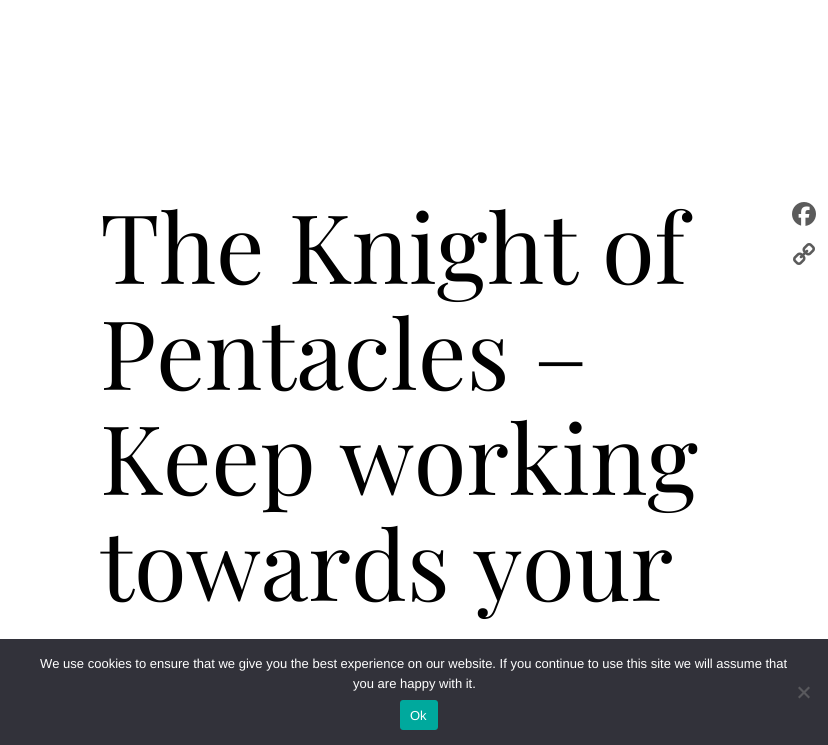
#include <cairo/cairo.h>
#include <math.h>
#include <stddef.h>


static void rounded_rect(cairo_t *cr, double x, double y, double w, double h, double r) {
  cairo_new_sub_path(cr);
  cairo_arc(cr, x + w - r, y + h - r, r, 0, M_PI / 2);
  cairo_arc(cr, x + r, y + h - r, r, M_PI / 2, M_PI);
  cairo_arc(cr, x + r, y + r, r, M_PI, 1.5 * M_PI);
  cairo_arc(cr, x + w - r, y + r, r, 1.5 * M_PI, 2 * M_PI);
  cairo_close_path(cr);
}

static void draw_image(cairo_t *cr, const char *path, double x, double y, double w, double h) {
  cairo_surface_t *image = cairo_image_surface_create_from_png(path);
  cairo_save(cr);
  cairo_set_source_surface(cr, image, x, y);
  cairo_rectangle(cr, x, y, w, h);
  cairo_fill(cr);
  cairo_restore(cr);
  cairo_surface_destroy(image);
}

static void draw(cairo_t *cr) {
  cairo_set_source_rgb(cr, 1, 1, 1);
  cairo_paint(cr);
  draw_image(cr, "images/1.png", 792, 202, 24, 24);
  draw_image(cr, "images/2.png", 793, 243, 22, 22);
  cairo_set_source_rgb(cr, 50 / 255.0, 50 / 255.0, 58 / 255.0);
  cairo_rectangle(cr, 0, 639, 828, 106);
  cairo_fill(cr);
  cairo_set_source_rgb(cr, 89 / 255.0, 89 / 255.0, 93 / 255.0);
  cairo_new_path(cr);
  cairo_move_to(cr, 808.5, 686.5);
  cairo_line_to(cr, 810, 688);
  cairo_line_to(cr, 799.5, 698.5);
  cairo_line_to(cr, 798, 697);
  cairo_close_path(cr);
  cairo_fill(cr);
  cairo_new_path(cr);
  cairo_move_to(cr, 798, 688);
  cairo_line_to(cr, 799.5, 686.5);
  cairo_line_to(cr, 810, 697);
  cairo_line_to(cr, 808.5, 698.5);
  cairo_close_path(cr);
  cairo_fill(cr);
  cairo_set_source_rgb(cr, 0, 169 / 255.0, 157 / 255.0);
  rounded_rect(cr, 400, 700, 38, 30, 3);
  cairo_fill(cr);
  cairo_select_font_face(cr, "Playfair Display", CAIRO_FONT_SLANT_NORMAL, CAIRO_FONT_WEIGHT_NORMAL);
  cairo_set_font_size(cr, 96);
  cairo_set_source_rgb(cr, 0, 0, 0);
  cairo_move_to(cr, 100, 284);
  cairo_show_text(cr, "The Knight of");
  cairo_move_to(cr, 100, 390);
  cairo_show_text(cr, "Pentacles –");
  cairo_move_to(cr, 100, 495);
  cairo_show_text(cr, "Keep working");
  cairo_move_to(cr, 100, 601);
  cairo_show_text(cr, "towards your");
  cairo_select_font_face(cr, "Liberation Sans", CAIRO_FONT_SLANT_NORMAL, CAIRO_FONT_WEIGHT_NORMAL);
  cairo_set_font_size(cr, 13);
  cairo_set_source_rgb(cr, 1, 1, 1);
  cairo_move_to(cr, 40, 668);
  cairo_show_text(cr, "We use cookies to ensure that we give you the best experience on our website. If you continue to use this site we will assume that");
  cairo_move_to(cr, 353, 688);
  cairo_show_text(cr, "you are happy with it.");
  cairo_move_to(cr, 410, 720);
  cairo_show_text(cr, "Ok");
}

int main(void) {
  cairo_surface_t *surface = cairo_image_surface_create(CAIRO_FORMAT_RGB24, 828, 745);
  cairo_t *cr = cairo_create(surface);
  cairo_font_options_t *options = cairo_font_options_create();
  cairo_font_options_set_hint_metrics(options, CAIRO_HINT_METRICS_OFF);
  cairo_font_options_set_hint_style(options, CAIRO_HINT_STYLE_NONE);
  cairo_set_font_options(cr, options);
  cairo_set_miter_limit(cr, 4);
  draw(cr);
  cairo_surface_write_to_png(surface, "out.png");
  cairo_font_options_destroy(options);
  cairo_destroy(cr);
  cairo_surface_destroy(surface);
  return 0;
}
